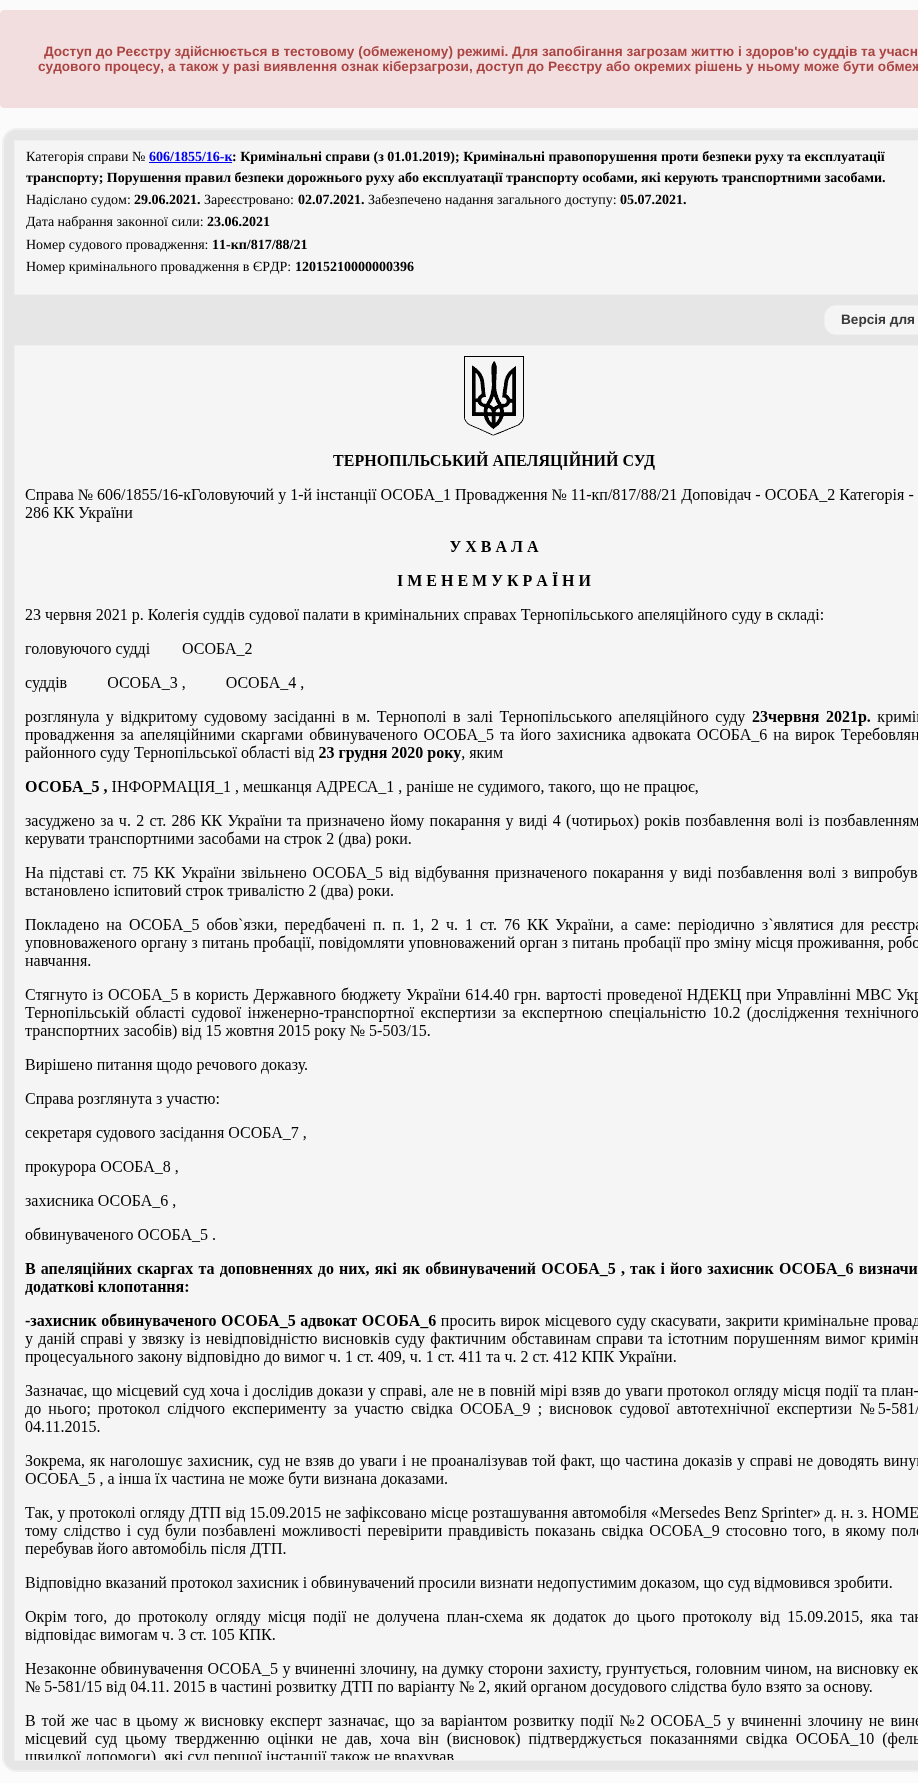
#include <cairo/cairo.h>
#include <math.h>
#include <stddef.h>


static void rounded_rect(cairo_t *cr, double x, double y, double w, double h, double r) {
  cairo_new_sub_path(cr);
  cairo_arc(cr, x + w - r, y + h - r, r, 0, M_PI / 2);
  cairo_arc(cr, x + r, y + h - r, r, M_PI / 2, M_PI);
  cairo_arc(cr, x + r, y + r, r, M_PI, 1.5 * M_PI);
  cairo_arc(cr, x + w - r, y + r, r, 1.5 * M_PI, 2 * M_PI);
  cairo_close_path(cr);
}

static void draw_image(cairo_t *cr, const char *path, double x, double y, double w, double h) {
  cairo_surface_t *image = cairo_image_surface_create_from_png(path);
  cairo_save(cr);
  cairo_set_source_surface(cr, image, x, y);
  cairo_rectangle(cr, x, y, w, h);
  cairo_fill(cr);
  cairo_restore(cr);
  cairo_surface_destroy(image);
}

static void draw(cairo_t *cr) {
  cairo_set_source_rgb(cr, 251 / 255.0, 251 / 255.0, 251 / 255.0);
  cairo_paint(cr);
  cairo_set_source_rgb(cr, 242 / 255.0, 222 / 255.0, 222 / 255.0);
  rounded_rect(cr, 0, 10, 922, 98, 4);
  cairo_fill(cr);
  cairo_set_source_rgb(cr, 230 / 255.0, 230 / 255.0, 230 / 255.0);
  rounded_rect(cr, 3, 129, 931, 1642, 14);
  cairo_fill_preserve(cr);
  cairo_set_source_rgb(cr, 239 / 255.0, 239 / 255.0, 239 / 255.0);
  cairo_stroke(cr);
  cairo_set_source_rgb(cr, 245 / 255.0, 245 / 255.0, 245 / 255.0);
  cairo_rectangle(cr, 14.5, 140.5, 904, 154);
  cairo_fill_preserve(cr);
  cairo_set_source_rgb(cr, 239 / 255.0, 239 / 255.0, 239 / 255.0);
  cairo_set_line_width(cr, 1);
  cairo_stroke(cr);
  cairo_set_source_rgb(cr, 0, 0, 238 / 255.0);
  cairo_rectangle(cr, 149, 162, 83, 1);
  cairo_fill(cr);
  cairo_set_source_rgb(cr, 245 / 255.0, 245 / 255.0, 245 / 255.0);
  rounded_rect(cr, 824.5, 305.5, 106, 29, 11.5);
  cairo_fill_preserve(cr);
  cairo_set_source_rgb(cr, 239 / 255.0, 239 / 255.0, 239 / 255.0);
  cairo_stroke(cr);
  cairo_set_source_rgb(cr, 245 / 255.0, 245 / 255.0, 245 / 255.0);
  cairo_rectangle(cr, 14.5, 345.5, 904, 1415);
  cairo_fill_preserve(cr);
  cairo_set_source_rgb(cr, 239 / 255.0, 239 / 255.0, 239 / 255.0);
  cairo_stroke(cr);
  draw_image(cr, "images/1.png", 25, 356, 893, 1404);
  cairo_select_font_face(cr, "Liberation Sans", CAIRO_FONT_SLANT_NORMAL, CAIRO_FONT_WEIGHT_BOLD);
  cairo_set_font_size(cr, 13.6);
  cairo_set_source_rgb(cr, 169 / 255.0, 68 / 255.0, 66 / 255.0);
  cairo_move_to(cr, 44, 56);
  cairo_show_text(cr, "Доступ до Реєстру здійснюється в тестовому (обмеженому) режимі. Для запобігання загрозам життю і здоров'ю суддів та учасн");
  cairo_move_to(cr, 38, 71);
  cairo_show_text(cr, "судового процесу, а також у разі виявлення ознак кіберзагрози, доступ до Реєстру або окремих рішень у ньому може бути обмеж");
  cairo_select_font_face(cr, "Liberation Serif", CAIRO_FONT_SLANT_NORMAL, CAIRO_FONT_WEIGHT_NORMAL);
  cairo_set_font_size(cr, 14);
  cairo_set_source_rgb(cr, 0, 0, 0);
  cairo_move_to(cr, 26, 161);
  cairo_show_text(cr, "Категорія справи №");
  cairo_select_font_face(cr, "Liberation Serif", CAIRO_FONT_SLANT_NORMAL, CAIRO_FONT_WEIGHT_BOLD);
  cairo_set_source_rgb(cr, 0, 0, 238 / 255.0);
  cairo_move_to(cr, 149, 161);
  cairo_show_text(cr, "606/1855/16-к");
  cairo_set_source_rgb(cr, 0, 0, 0);
  cairo_move_to(cr, 232, 161);
  cairo_show_text(cr, ": Кримінальні справи (з 01.01.2019); Кримінальні правопорушення проти безпеки руху та експлуатації");
  cairo_move_to(cr, 26, 182);
  cairo_show_text(cr, "транспорту; Порушення правил безпеки дорожнього руху або експлуатації транспорту особами, які керують транспортними засобами.");
  cairo_select_font_face(cr, "Liberation Serif", CAIRO_FONT_SLANT_NORMAL, CAIRO_FONT_WEIGHT_NORMAL);
  cairo_move_to(cr, 26, 204);
  cairo_show_text(cr, "Надіслано судом:");
  cairo_select_font_face(cr, "Liberation Serif", CAIRO_FONT_SLANT_NORMAL, CAIRO_FONT_WEIGHT_BOLD);
  cairo_move_to(cr, 134, 204);
  cairo_show_text(cr, "29.06.2021.");
  cairo_select_font_face(cr, "Liberation Serif", CAIRO_FONT_SLANT_NORMAL, CAIRO_FONT_WEIGHT_NORMAL);
  cairo_move_to(cr, 204, 204);
  cairo_show_text(cr, "Зареєстровано:");
  cairo_select_font_face(cr, "Liberation Serif", CAIRO_FONT_SLANT_NORMAL, CAIRO_FONT_WEIGHT_BOLD);
  cairo_move_to(cr, 298, 204);
  cairo_show_text(cr, "02.07.2021.");
  cairo_select_font_face(cr, "Liberation Serif", CAIRO_FONT_SLANT_NORMAL, CAIRO_FONT_WEIGHT_NORMAL);
  cairo_move_to(cr, 368, 204);
  cairo_show_text(cr, "Забезпечено надання загального доступу:");
  cairo_select_font_face(cr, "Liberation Serif", CAIRO_FONT_SLANT_NORMAL, CAIRO_FONT_WEIGHT_BOLD);
  cairo_move_to(cr, 620, 204);
  cairo_show_text(cr, "05.07.2021.");
  cairo_select_font_face(cr, "Liberation Serif", CAIRO_FONT_SLANT_NORMAL, CAIRO_FONT_WEIGHT_NORMAL);
  cairo_move_to(cr, 26, 226);
  cairo_show_text(cr, "Дата набрання законної сили:");
  cairo_select_font_face(cr, "Liberation Serif", CAIRO_FONT_SLANT_NORMAL, CAIRO_FONT_WEIGHT_BOLD);
  cairo_move_to(cr, 207, 226);
  cairo_show_text(cr, "23.06.2021");
  cairo_select_font_face(cr, "Liberation Serif", CAIRO_FONT_SLANT_NORMAL, CAIRO_FONT_WEIGHT_NORMAL);
  cairo_move_to(cr, 26, 249);
  cairo_show_text(cr, "Номер судового провадження:");
  cairo_select_font_face(cr, "Liberation Serif", CAIRO_FONT_SLANT_NORMAL, CAIRO_FONT_WEIGHT_BOLD);
  cairo_move_to(cr, 212, 249);
  cairo_show_text(cr, "11-кп/817/88/21");
  cairo_select_font_face(cr, "Liberation Serif", CAIRO_FONT_SLANT_NORMAL, CAIRO_FONT_WEIGHT_NORMAL);
  cairo_move_to(cr, 26, 271);
  cairo_show_text(cr, "Номер кримінального провадження в ЄРДР:");
  cairo_select_font_face(cr, "Liberation Serif", CAIRO_FONT_SLANT_NORMAL, CAIRO_FONT_WEIGHT_BOLD);
  cairo_move_to(cr, 295, 271);
  cairo_show_text(cr, "12015210000000396");
  cairo_select_font_face(cr, "Liberation Sans", CAIRO_FONT_SLANT_NORMAL, CAIRO_FONT_WEIGHT_BOLD);
  cairo_set_font_size(cr, 13.6);
  cairo_set_source_rgb(cr, 57 / 255.0, 57 / 255.0, 57 / 255.0);
  cairo_move_to(cr, 841, 324);
  cairo_show_text(cr, "Версія для");
}

int main(void) {
  cairo_surface_t *surface = cairo_image_surface_create(CAIRO_FORMAT_RGB24, 918, 1783);
  cairo_t *cr = cairo_create(surface);
  cairo_font_options_t *options = cairo_font_options_create();
  cairo_font_options_set_hint_metrics(options, CAIRO_HINT_METRICS_OFF);
  cairo_font_options_set_hint_style(options, CAIRO_HINT_STYLE_NONE);
  cairo_set_font_options(cr, options);
  cairo_set_miter_limit(cr, 4);
  draw(cr);
  cairo_surface_write_to_png(surface, "out.png");
  cairo_font_options_destroy(options);
  cairo_destroy(cr);
  cairo_surface_destroy(surface);
  return 0;
}
